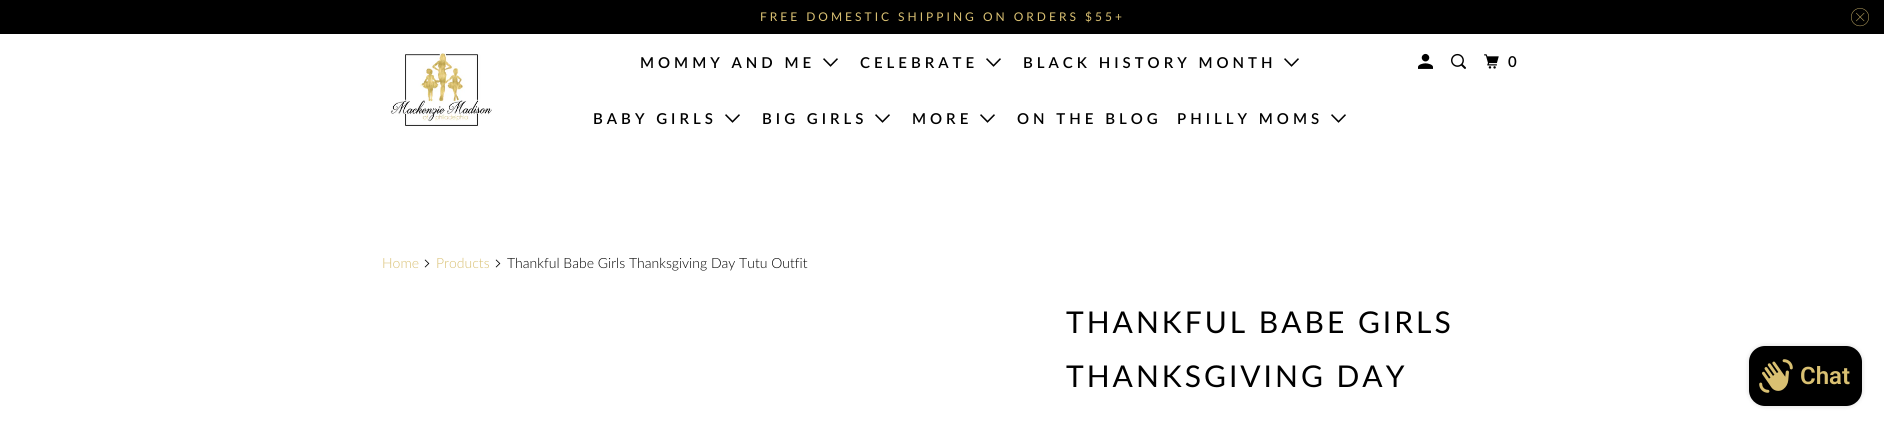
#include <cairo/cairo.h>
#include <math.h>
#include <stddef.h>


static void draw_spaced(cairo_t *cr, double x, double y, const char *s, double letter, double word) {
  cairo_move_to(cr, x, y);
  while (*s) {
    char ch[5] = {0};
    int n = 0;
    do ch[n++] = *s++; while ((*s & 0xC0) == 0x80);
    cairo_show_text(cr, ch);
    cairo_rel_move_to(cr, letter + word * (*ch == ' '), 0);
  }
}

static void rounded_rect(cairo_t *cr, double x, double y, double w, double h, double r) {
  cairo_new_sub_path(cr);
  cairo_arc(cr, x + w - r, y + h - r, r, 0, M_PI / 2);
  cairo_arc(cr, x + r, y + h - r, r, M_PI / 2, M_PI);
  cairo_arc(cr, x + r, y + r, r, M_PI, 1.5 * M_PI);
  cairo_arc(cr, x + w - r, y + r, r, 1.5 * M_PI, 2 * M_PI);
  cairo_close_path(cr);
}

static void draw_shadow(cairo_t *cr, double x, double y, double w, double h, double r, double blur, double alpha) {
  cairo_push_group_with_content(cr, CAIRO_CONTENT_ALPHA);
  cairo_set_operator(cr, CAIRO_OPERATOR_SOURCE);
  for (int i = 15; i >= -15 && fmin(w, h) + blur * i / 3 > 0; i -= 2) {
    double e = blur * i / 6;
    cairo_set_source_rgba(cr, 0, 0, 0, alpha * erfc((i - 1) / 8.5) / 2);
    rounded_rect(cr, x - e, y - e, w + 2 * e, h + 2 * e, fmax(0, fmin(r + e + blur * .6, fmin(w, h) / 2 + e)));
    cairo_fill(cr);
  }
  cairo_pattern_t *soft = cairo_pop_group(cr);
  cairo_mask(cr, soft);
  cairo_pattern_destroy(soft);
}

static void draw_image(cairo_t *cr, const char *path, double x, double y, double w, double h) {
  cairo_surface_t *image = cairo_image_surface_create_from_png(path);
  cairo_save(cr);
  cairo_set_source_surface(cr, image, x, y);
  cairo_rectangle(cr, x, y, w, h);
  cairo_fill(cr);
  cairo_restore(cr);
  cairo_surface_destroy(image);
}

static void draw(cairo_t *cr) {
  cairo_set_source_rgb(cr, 0, 0, 0);
  cairo_paint(cr);
  draw_image(cr, "images/1.png", 1851, 8, 18, 19);
  cairo_set_source_rgb(cr, 1, 1, 1);
  cairo_rectangle(cr, 0, 34, 1884, 393);
  cairo_fill(cr);
  draw_image(cr, "images/2.png", 390, 53, 102, 74);
  draw_image(cr, "images/3.png", 823, 58, 15, 9);
  draw_image(cr, "images/3.png", 986, 58, 15, 9);
  draw_image(cr, "images/3.png", 1284, 58, 15, 9);
  draw_image(cr, "images/3.png", 725, 114, 15, 9);
  draw_image(cr, "images/3.png", 875, 114, 15, 9);
  draw_image(cr, "images/3.png", 980, 114, 15, 9);
  draw_image(cr, "images/3.png", 1331, 114, 15, 9);
  draw_image(cr, "images/4.png", 1418, 53, 15, 16);
  draw_image(cr, "images/5.png", 1451, 53, 15, 16);
  draw_image(cr, "images/6.png", 1484, 54, 15, 15);
  draw_image(cr, "images/7.png", 424, 259, 6, 9);
  draw_image(cr, "images/7.png", 495, 259, 6, 9);
  cairo_set_source_rgb(cr, 0, 0, 0);
  draw_shadow(cr, 1749, 346, 113, 60, 16, 2.5, 0.15);
  cairo_set_source_rgb(cr, 0, 0, 0);
  rounded_rect(cr, 1749, 346, 113, 60, 16);
  cairo_fill(cr);
  draw_image(cr, "images/8.png", 1759, 359, 34, 34);
  cairo_select_font_face(cr, "Lato", CAIRO_FONT_SLANT_NORMAL, CAIRO_FONT_WEIGHT_NORMAL);
  cairo_set_font_size(cr, 12);
  cairo_set_source_rgb(cr, 217 / 255.0, 192 / 255.0, 114 / 255.0);
  draw_spaced(cr, 760, 21, "FREE DOMESTIC SHIPPING ON ORDERS $55+", 3, 0);
  cairo_select_font_face(cr, "Lato SemiBold", CAIRO_FONT_SLANT_NORMAL, CAIRO_FONT_WEIGHT_NORMAL);
  cairo_set_font_size(cr, 15);
  cairo_set_source_rgb(cr, 0, 0, 0);
  draw_spaced(cr, 640, 68, "MOMMY AND ME", 4, 0);
  draw_spaced(cr, 860, 68, "CELEBRATE", 4, 0);
  draw_spaced(cr, 1023, 68, "BLACK HISTORY MONTH", 4, 0);
  draw_spaced(cr, 593, 124, "BABY GIRLS", 4, 0);
  draw_spaced(cr, 762, 124, "BIG GIRLS", 4, 0);
  draw_spaced(cr, 912, 124, "MORE", 4, 0);
  draw_spaced(cr, 1017, 124, "ON THE BLOG", 4, 0);
  draw_spaced(cr, 1177, 124, "PHILLY MOMS", 4, 0);
  draw_spaced(cr, 1508, 67, "0", 4, 0);
  cairo_select_font_face(cr, "Lato Light", CAIRO_FONT_SLANT_NORMAL, CAIRO_FONT_WEIGHT_NORMAL);
  cairo_set_font_size(cr, 14);
  cairo_set_source_rgb(cr, 217 / 255.0, 192 / 255.0, 114 / 255.0);
  cairo_move_to(cr, 382, 268);
  cairo_show_text(cr, "Home");
  cairo_move_to(cr, 436, 268);
  cairo_show_text(cr, "Products");
  cairo_set_source_rgb(cr, 0, 0, 0);
  cairo_move_to(cr, 507, 268);
  cairo_show_text(cr, "Thankful Babe Girls Thanksgiving Day Tutu Outfit");
  cairo_select_font_face(cr, "Lato", CAIRO_FONT_SLANT_NORMAL, CAIRO_FONT_WEIGHT_NORMAL);
  cairo_set_font_size(cr, 30);
  draw_spaced(cr, 1066, 333, "THANKFUL BABE GIRLS", 3, 0);
  draw_spaced(cr, 1066, 387, "THANKSGIVING DAY", 3, 0);
  cairo_select_font_face(cr, "Roboto SemiBold", CAIRO_FONT_SLANT_NORMAL, CAIRO_FONT_WEIGHT_NORMAL);
  cairo_set_font_size(cr, 24);
  cairo_set_source_rgb(cr, 217 / 255.0, 192 / 255.0, 114 / 255.0);
  cairo_move_to(cr, 1800, 384);
  cairo_show_text(cr, "Chat");
}

int main(void) {
  cairo_surface_t *surface = cairo_image_surface_create(CAIRO_FORMAT_RGB24, 1884, 427);
  cairo_t *cr = cairo_create(surface);
  cairo_font_options_t *options = cairo_font_options_create();
  cairo_font_options_set_hint_metrics(options, CAIRO_HINT_METRICS_OFF);
  cairo_font_options_set_hint_style(options, CAIRO_HINT_STYLE_NONE);
  cairo_set_font_options(cr, options);
  cairo_set_miter_limit(cr, 4);
  draw(cr);
  cairo_surface_write_to_png(surface, "out.png");
  cairo_font_options_destroy(options);
  cairo_destroy(cr);
  cairo_surface_destroy(surface);
  return 0;
}
